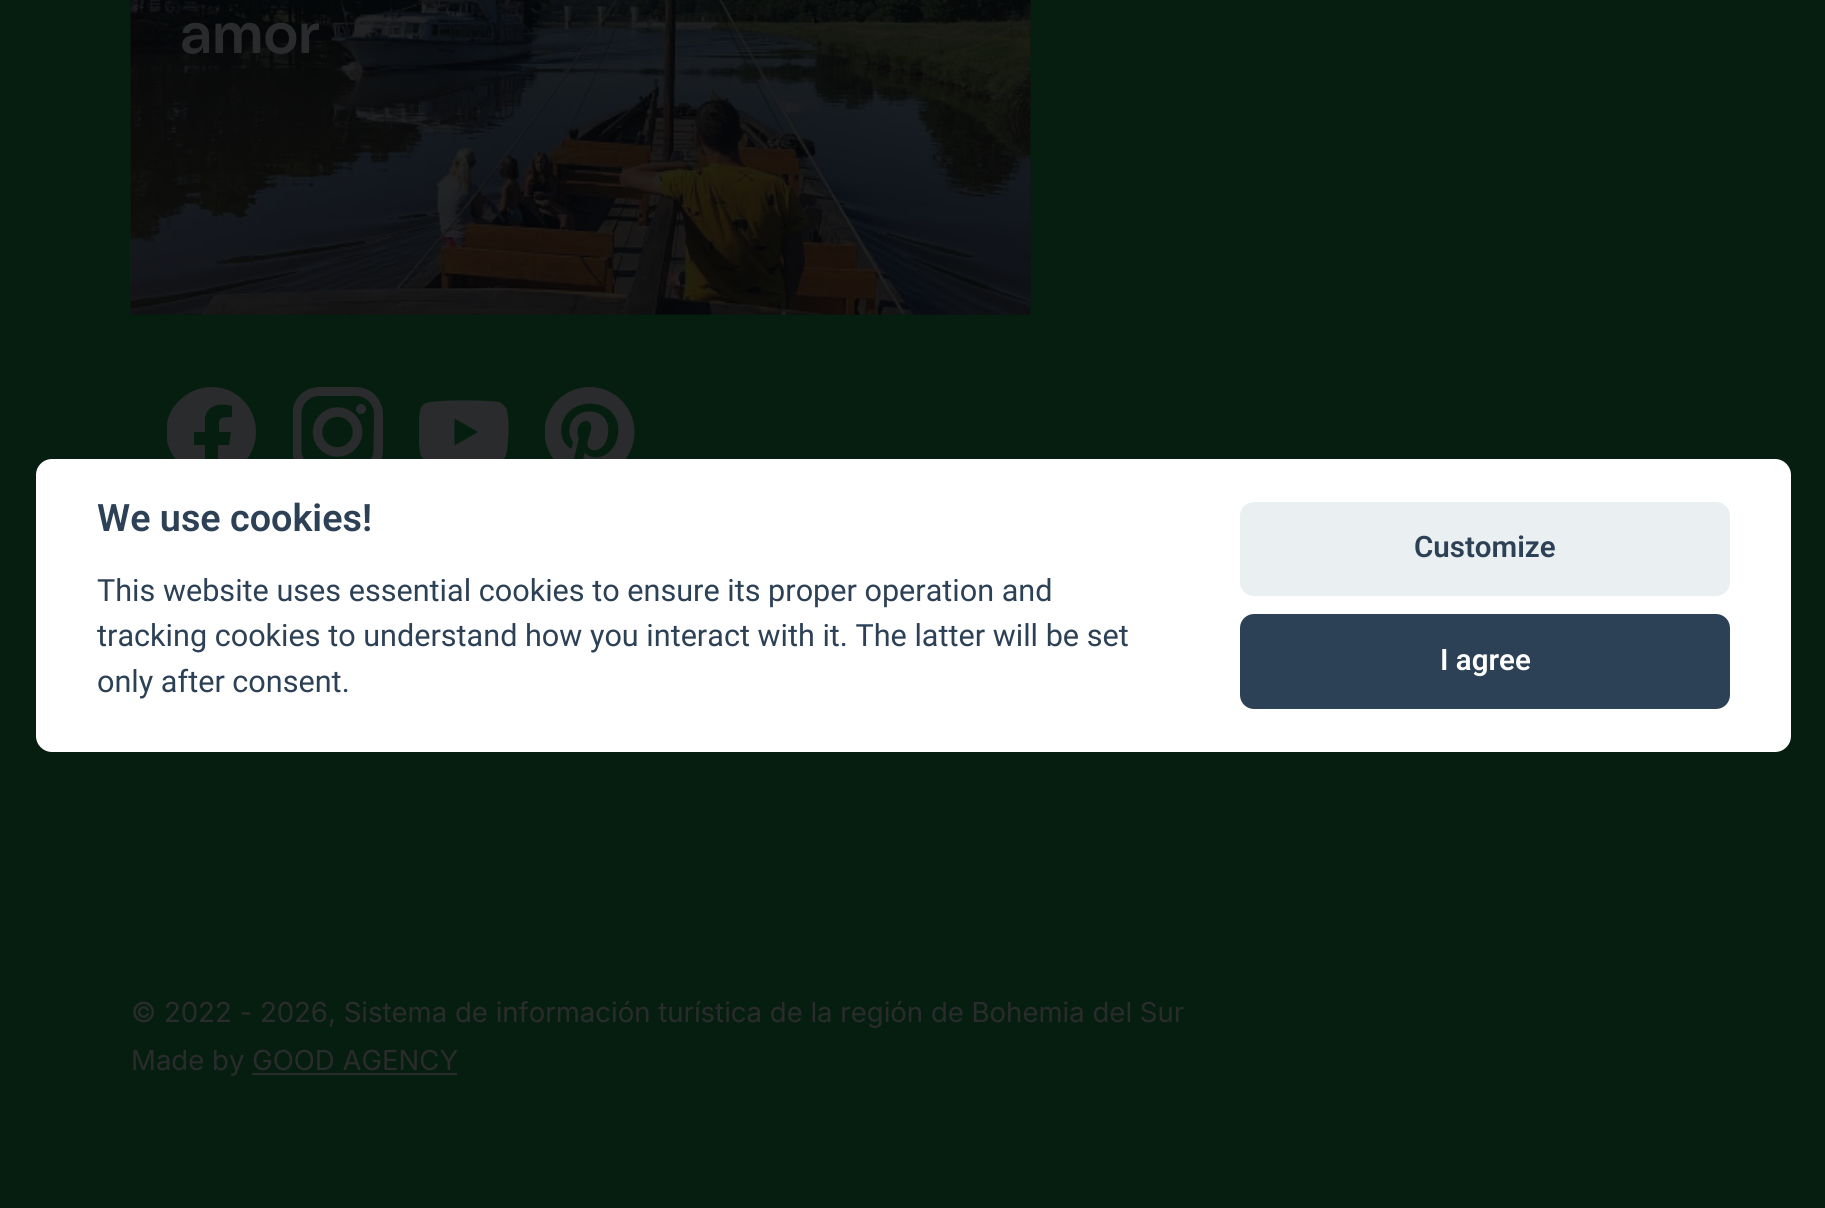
#include <cairo/cairo.h>
#include <math.h>
#include <stddef.h>


static void rounded_rect(cairo_t *cr, double x, double y, double w, double h, double r) {
  cairo_new_sub_path(cr);
  cairo_arc(cr, x + w - r, y + h - r, r, 0, M_PI / 2);
  cairo_arc(cr, x + r, y + h - r, r, M_PI / 2, M_PI);
  cairo_arc(cr, x + r, y + r, r, M_PI, 1.5 * M_PI);
  cairo_arc(cr, x + w - r, y + r, r, 1.5 * M_PI, 2 * M_PI);
  cairo_close_path(cr);
}

static void draw_image(cairo_t *cr, const char *path, double x, double y, double w, double h) {
  cairo_surface_t *image = cairo_image_surface_create_from_png(path);
  cairo_save(cr);
  cairo_set_source_surface(cr, image, x, y);
  cairo_rectangle(cr, x, y, w, h);
  cairo_fill(cr);
  cairo_restore(cr);
  cairo_surface_destroy(image);
}

static void draw(cairo_t *cr) {
  cairo_set_source_rgb(cr, 6 / 255.0, 30 / 255.0, 15 / 255.0);
  cairo_paint(cr);
  cairo_set_source_rgb(cr, 6 / 255.0, 25 / 255.0, 14 / 255.0);
  cairo_rectangle(cr, 131, 0, 900, 315);
  cairo_fill(cr);
  draw_image(cr, "images/1.png", 130, 0, 901, 315);
  cairo_save(cr);
  cairo_rectangle(cr, 167, 387, 90, 90);
  cairo_clip(cr);
  cairo_set_source_rgb(cr, 42 / 255.0, 43 / 255.0, 45 / 255.0);
  cairo_new_path(cr);
  cairo_move_to(cr, 256, 432);
  cairo_curve_to(cr, 256, 407, 236, 387, 212, 387);
  cairo_curve_to(cr, 187, 387, 166, 407, 166, 432);
  cairo_curve_to(cr, 166, 454, 183, 473, 205, 476);
  cairo_line_to(cr, 205, 445);
  cairo_line_to(cr, 194, 445);
  cairo_line_to(cr, 194, 432);
  cairo_line_to(cr, 205, 432);
  cairo_line_to(cr, 205, 418);
  cairo_curve_to(cr, 207, 404, 221, 403, 232, 406);
  cairo_line_to(cr, 232, 417);
  cairo_curve_to(cr, 217, 417, 219, 419, 219, 432);
  cairo_line_to(cr, 231, 432);
  cairo_line_to(cr, 229, 445);
  cairo_line_to(cr, 218, 445);
  cairo_line_to(cr, 218, 476);
  cairo_curve_to(cr, 240, 473, 256, 454, 256, 432);
  cairo_close_path(cr);
  cairo_fill(cr);
  cairo_restore(cr);
  draw_image(cr, "images/2.png", 293, 387, 90, 72);
  cairo_save(cr);
  cairo_rectangle(cr, 419, 387, 90, 90);
  cairo_clip(cr);
  cairo_set_source_rgb(cr, 42 / 255.0, 43 / 255.0, 45 / 255.0);
  cairo_new_path(cr);
  cairo_move_to(cr, 507, 410);
  cairo_curve_to(cr, 506, 407, 502, 403, 499, 402);
  cairo_curve_to(cr, 489, 400, 431, 399, 424, 404);
  cairo_curve_to(cr, 420, 407, 420, 412, 419, 417);
  cairo_curve_to(cr, 418, 426, 418, 435, 419, 444);
  cairo_curve_to(cr, 420, 458, 422, 462, 437, 463);
  cairo_line_to(cr, 465, 463);
  cairo_line_to(cr, 490, 463);
  cairo_curve_to(cr, 507, 462, 507, 456, 508, 440);
  cairo_curve_to(cr, 509, 431, 509, 420, 507, 410);
  cairo_close_path(cr);
  cairo_fill(cr);
  cairo_restore(cr);
  cairo_set_source_rgb(cr, 6 / 255.0, 30 / 255.0, 15 / 255.0);
  cairo_new_path(cr);
  cairo_move_to(cr, 454.5, 445.5);
  cairo_line_to(cr, 478, 432);
  cairo_line_to(cr, 454.5, 418.5);
  cairo_close_path(cr);
  cairo_fill(cr);
  draw_image(cr, "images/3.png", 545, 387, 90, 72);
  cairo_set_source_rgb(cr, 42 / 255.0, 43 / 255.0, 45 / 255.0);
  cairo_rectangle(cr, 252, 1073, 205, 2);
  cairo_fill(cr);
  cairo_set_source_rgb(cr, 1, 1, 1);
  rounded_rect(cr, 36, 459, 1755, 293, 16);
  cairo_fill(cr);
  cairo_set_source_rgb(cr, 234 / 255.0, 239 / 255.0, 242 / 255.0);
  rounded_rect(cr, 1240, 502, 490, 94, 14);
  cairo_fill(cr);
  cairo_set_source_rgb(cr, 45 / 255.0, 65 / 255.0, 86 / 255.0);
  rounded_rect(cr, 1240, 614, 490, 95, 14);
  cairo_fill(cr);
  cairo_select_font_face(cr, "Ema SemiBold", CAIRO_FONT_SLANT_NORMAL, CAIRO_FONT_WEIGHT_NORMAL);
  cairo_set_font_size(cr, 54);
  cairo_set_source_rgb(cr, 42 / 255.0, 43 / 255.0, 45 / 255.0);
  cairo_move_to(cr, 180, 53);
  cairo_show_text(cr, "amor");
  cairo_select_font_face(cr, "Inter", CAIRO_FONT_SLANT_NORMAL, CAIRO_FONT_WEIGHT_NORMAL);
  cairo_set_font_size(cr, 27.55);
  cairo_move_to(cr, 131, 1022);
  cairo_show_text(cr, "© 2022 - 2026, Sistema de información turística de la región de Bohemia del Sur");
  cairo_move_to(cr, 131, 1070);
  cairo_show_text(cr, "Made by GOOD AGENCY");
  cairo_select_font_face(cr, "Roboto SemiBold", CAIRO_FONT_SLANT_NORMAL, CAIRO_FONT_WEIGHT_NORMAL);
  cairo_set_font_size(cr, 37.75);
  cairo_set_source_rgb(cr, 45 / 255.0, 65 / 255.0, 86 / 255.0);
  cairo_move_to(cr, 97, 531);
  cairo_show_text(cr, "We use cookies!");
  cairo_select_font_face(cr, "Roboto", CAIRO_FONT_SLANT_NORMAL, CAIRO_FONT_WEIGHT_NORMAL);
  cairo_set_font_size(cr, 30.6);
  cairo_move_to(cr, 97, 601);
  cairo_show_text(cr, "This website uses essential cookies to ensure its proper operation and");
  cairo_move_to(cr, 97, 646);
  cairo_show_text(cr, "tracking cookies to understand how you interact with it. The latter will be set");
  cairo_move_to(cr, 97, 692);
  cairo_show_text(cr, "only after consent.");
  cairo_select_font_face(cr, "Roboto SemiBold", CAIRO_FONT_SLANT_NORMAL, CAIRO_FONT_WEIGHT_NORMAL);
  cairo_set_font_size(cr, 29.5);
  cairo_move_to(cr, 1414, 557);
  cairo_show_text(cr, "Customize");
  cairo_set_source_rgb(cr, 1, 1, 1);
  cairo_move_to(cr, 1440, 670);
  cairo_show_text(cr, "I agree");
}

int main(void) {
  cairo_surface_t *surface = cairo_image_surface_create(CAIRO_FORMAT_RGB24, 1825, 1208);
  cairo_t *cr = cairo_create(surface);
  cairo_font_options_t *options = cairo_font_options_create();
  cairo_font_options_set_hint_metrics(options, CAIRO_HINT_METRICS_OFF);
  cairo_font_options_set_hint_style(options, CAIRO_HINT_STYLE_NONE);
  cairo_set_font_options(cr, options);
  cairo_set_miter_limit(cr, 4);
  draw(cr);
  cairo_surface_write_to_png(surface, "out.png");
  cairo_font_options_destroy(options);
  cairo_destroy(cr);
  cairo_surface_destroy(surface);
  return 0;
}
